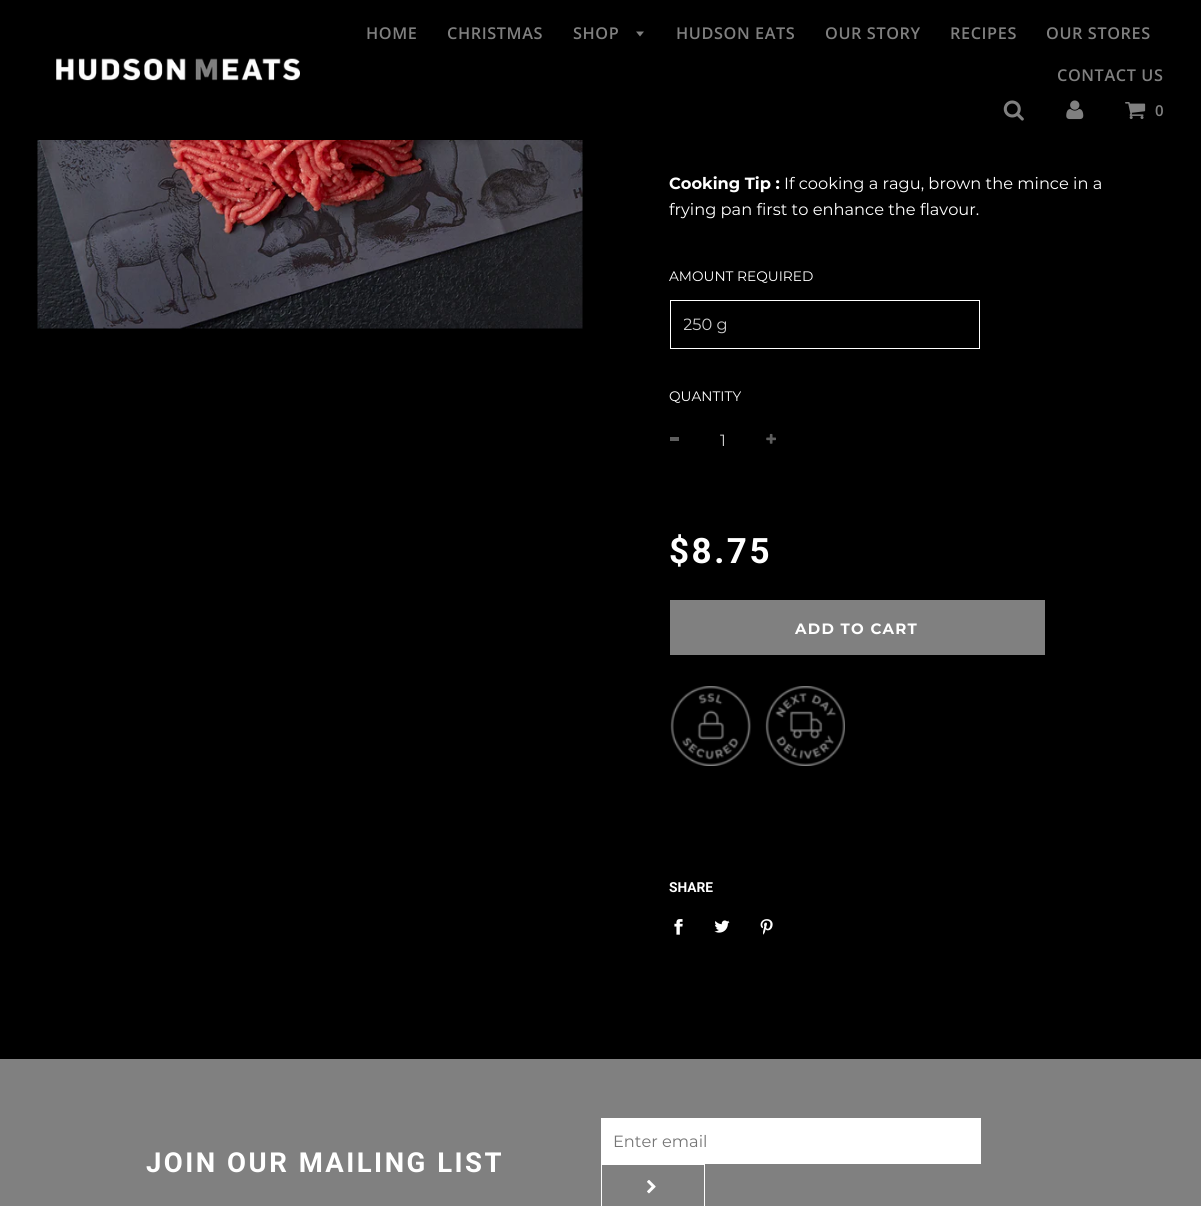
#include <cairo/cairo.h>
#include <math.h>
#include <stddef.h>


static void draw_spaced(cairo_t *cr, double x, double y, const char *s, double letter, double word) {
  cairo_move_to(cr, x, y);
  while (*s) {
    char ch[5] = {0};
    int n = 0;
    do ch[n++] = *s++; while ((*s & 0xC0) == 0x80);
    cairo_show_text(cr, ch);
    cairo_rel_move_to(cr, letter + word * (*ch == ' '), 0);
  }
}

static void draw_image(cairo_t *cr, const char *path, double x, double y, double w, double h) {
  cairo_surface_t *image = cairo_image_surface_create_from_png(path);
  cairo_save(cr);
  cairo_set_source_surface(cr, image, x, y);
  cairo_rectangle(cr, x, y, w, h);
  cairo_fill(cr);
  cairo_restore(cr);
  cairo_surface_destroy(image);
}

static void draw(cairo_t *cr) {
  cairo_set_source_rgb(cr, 0, 0, 0);
  cairo_paint(cr);
  draw_image(cr, "images/1.png", 56, 58, 244, 23);
  cairo_set_source_rgb(cr, 128 / 255.0, 128 / 255.0, 128 / 255.0);
  cairo_new_path(cr);
  cairo_move_to(cr, 636, 31.5);
  cairo_line_to(cr, 640, 36.5);
  cairo_line_to(cr, 644, 31.5);
  cairo_close_path(cr);
  cairo_fill(cr);
  draw_image(cr, "images/2.png", 1003, 100, 21, 21);
  draw_image(cr, "images/3.png", 1066, 100, 18, 20);
  draw_image(cr, "images/4.png", 1125, 102, 21, 17);
  draw_image(cr, "images/5.png", 37, 140, 546, 189);
  cairo_rectangle(cr, 670.5, 300.5, 309, 48);
  cairo_set_source_rgb(cr, 1, 1, 1);
  cairo_set_line_width(cr, 1);
  cairo_stroke(cr);
  cairo_set_source_rgb(cr, 94 / 255.0, 94 / 255.0, 94 / 255.0);
  cairo_rectangle(cr, 670, 437, 9, 4);
  cairo_fill(cr);
  draw_image(cr, "images/6.png", 766, 433, 10, 11);
  cairo_set_source_rgb(cr, 128 / 255.0, 128 / 255.0, 128 / 255.0);
  cairo_rectangle(cr, 670, 600, 375, 55);
  cairo_fill(cr);
  draw_image(cr, "images/7.png", 670, 686, 175, 80);
  draw_image(cr, "images/8.png", 674, 919, 9, 16);
  draw_image(cr, "images/9.png", 714, 920, 16, 13);
  draw_image(cr, "images/10.png", 760, 919, 13, 16);
  cairo_rectangle(cr, 0, 1059, 1201, 147);
  cairo_fill(cr);
  cairo_set_source_rgb(cr, 1, 1, 1);
  cairo_rectangle(cr, 601, 1118, 380, 46);
  cairo_fill(cr);
  cairo_rectangle(cr, 601.5, 1164.5, 103, 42);
  cairo_stroke(cr);
  draw_image(cr, "images/11.png", 647, 1180, 9, 14);
  cairo_select_font_face(cr, "Open Sans SemiBold", CAIRO_FONT_SLANT_NORMAL, CAIRO_FONT_WEIGHT_NORMAL);
  cairo_set_font_size(cr, 16.25);
  cairo_set_source_rgb(cr, 128 / 255.0, 128 / 255.0, 128 / 255.0);
  draw_spaced(cr, 366, 39, "HOME", 0.6, 0);
  draw_spaced(cr, 447, 39, "CHRISTMAS", 0.6, 0);
  draw_spaced(cr, 573, 39, "SHOP", 0.6, 0);
  draw_spaced(cr, 676, 39, "HUDSON EATS", 0.6, 0);
  draw_spaced(cr, 825, 39, "OUR STORY", 0.6, 0);
  draw_spaced(cr, 950, 39, "RECIPES", 0.6, 0);
  draw_spaced(cr, 1046, 39, "OUR STORES", 0.6, 0);
  draw_spaced(cr, 1057, 81, "CONTACT US", 0.6, 0);
  cairo_set_font_size(cr, 15);
  cairo_move_to(cr, 1155, 116);
  cairo_show_text(cr, "0");
  cairo_select_font_face(cr, "Montserrat", CAIRO_FONT_SLANT_NORMAL, CAIRO_FONT_WEIGHT_BOLD);
  cairo_set_font_size(cr, 16.25);
  cairo_set_source_rgb(cr, 1, 1, 1);
  cairo_move_to(cr, 669, 189);
  cairo_show_text(cr, "Cooking Tip :");
  cairo_select_font_face(cr, "Montserrat", CAIRO_FONT_SLANT_NORMAL, CAIRO_FONT_WEIGHT_NORMAL);
  cairo_move_to(cr, 784, 189);
  cairo_show_text(cr, "If cooking a ragu, brown the mince in a");
  cairo_move_to(cr, 669, 215);
  cairo_show_text(cr, "frying pan first to enhance the flavour.");
  cairo_set_font_size(cr, 13.75);
  cairo_move_to(cr, 669, 281);
  cairo_show_text(cr, "AMOUNT REQUIRED");
  cairo_save(cr);
  cairo_rectangle(cr, 684, 311, 260, 27);
  cairo_clip(cr);
  cairo_set_font_size(cr, 16.25);
  cairo_set_source_rgb(cr, 204 / 255.0, 204 / 255.0, 204 / 255.0);
  cairo_move_to(cr, 683, 330);
  cairo_show_text(cr, "250 g");
  cairo_restore(cr);
  cairo_move_to(cr, 669, 401);
  cairo_show_text(cr, "QUANTITY");
  cairo_set_font_size(cr, 16.25);
  cairo_set_source_rgb(cr, 204 / 255.0, 204 / 255.0, 204 / 255.0);
  cairo_move_to(cr, 720, 446);
  cairo_show_text(cr, "1");
  cairo_select_font_face(cr, "Roboto", CAIRO_FONT_SLANT_NORMAL, CAIRO_FONT_WEIGHT_BOLD);
  cairo_set_font_size(cr, 35);
  cairo_set_source_rgb(cr, 1, 1, 1);
  draw_spaced(cr, 669, 563, "$8.75", 2.5, 0);
  cairo_select_font_face(cr, "Montserrat", CAIRO_FONT_SLANT_NORMAL, CAIRO_FONT_WEIGHT_BOLD);
  cairo_set_font_size(cr, 15);
  draw_spaced(cr, 795, 634, "ADD TO CART", 1.25, 0);
  cairo_select_font_face(cr, "Roboto", CAIRO_FONT_SLANT_NORMAL, CAIRO_FONT_WEIGHT_BOLD);
  cairo_set_font_size(cr, 13.75);
  cairo_move_to(cr, 669, 892);
  cairo_show_text(cr, "SHARE");
  cairo_select_font_face(cr, "Montserrat", CAIRO_FONT_SLANT_NORMAL, CAIRO_FONT_WEIGHT_NORMAL);
  cairo_set_font_size(cr, 16.25);
  cairo_set_source_rgb(cr, 117 / 255.0, 117 / 255.0, 117 / 255.0);
  cairo_move_to(cr, 613, 1147);
  cairo_show_text(cr, "Enter email");
  cairo_select_font_face(cr, "Roboto", CAIRO_FONT_SLANT_NORMAL, CAIRO_FONT_WEIGHT_BOLD);
  cairo_set_font_size(cr, 27.5);
  cairo_set_source_rgb(cr, 1, 1, 1);
  draw_spaced(cr, 146, 1172, "JOIN OUR MAILING LIST", 2.5, 0);
}

int main(void) {
  cairo_surface_t *surface = cairo_image_surface_create(CAIRO_FORMAT_RGB24, 1201, 1206);
  cairo_t *cr = cairo_create(surface);
  cairo_font_options_t *options = cairo_font_options_create();
  cairo_font_options_set_hint_metrics(options, CAIRO_HINT_METRICS_OFF);
  cairo_font_options_set_hint_style(options, CAIRO_HINT_STYLE_NONE);
  cairo_set_font_options(cr, options);
  cairo_set_miter_limit(cr, 4);
  draw(cr);
  cairo_surface_write_to_png(surface, "out.png");
  cairo_font_options_destroy(options);
  cairo_destroy(cr);
  cairo_surface_destroy(surface);
  return 0;
}
